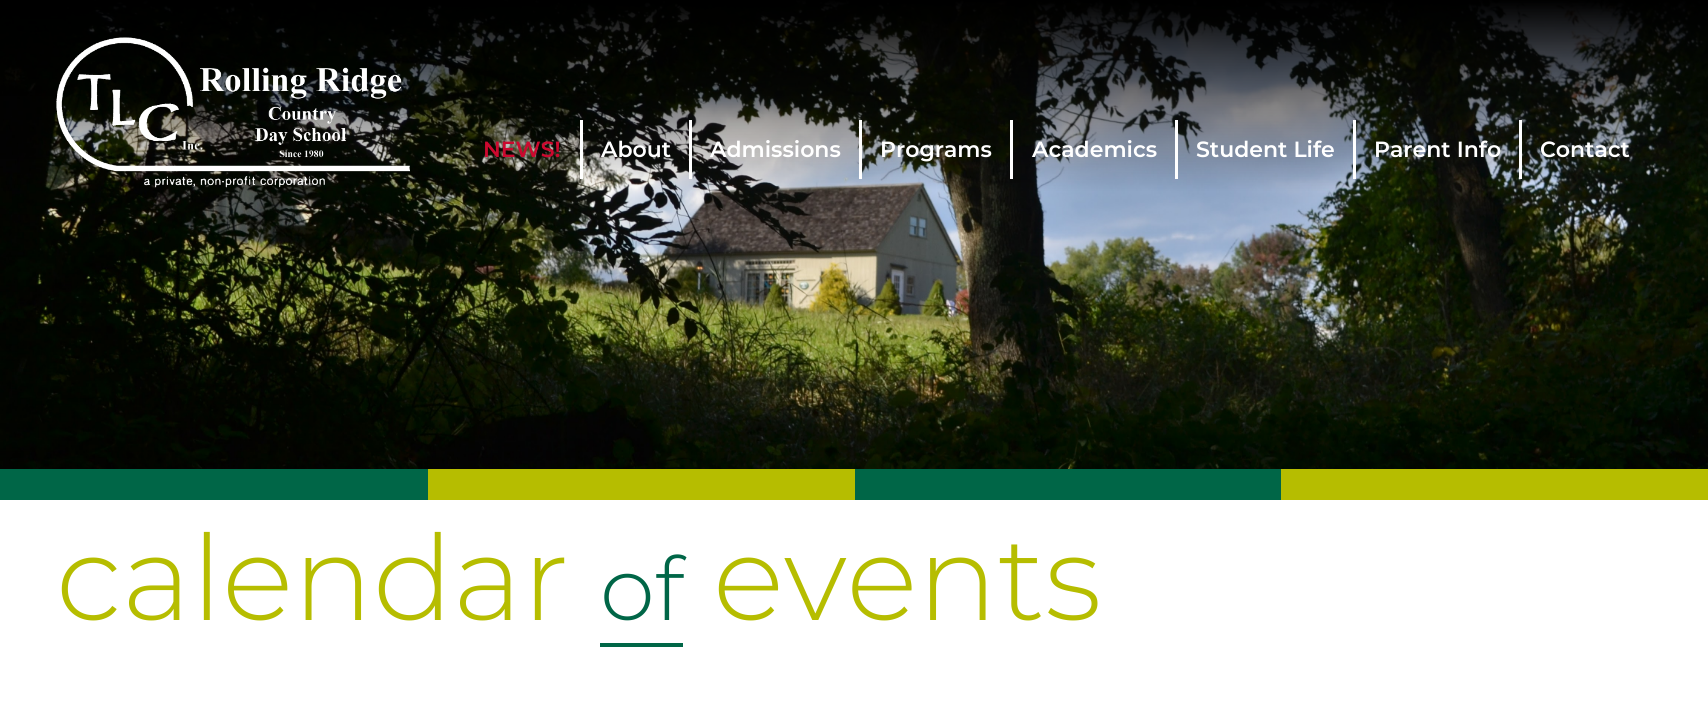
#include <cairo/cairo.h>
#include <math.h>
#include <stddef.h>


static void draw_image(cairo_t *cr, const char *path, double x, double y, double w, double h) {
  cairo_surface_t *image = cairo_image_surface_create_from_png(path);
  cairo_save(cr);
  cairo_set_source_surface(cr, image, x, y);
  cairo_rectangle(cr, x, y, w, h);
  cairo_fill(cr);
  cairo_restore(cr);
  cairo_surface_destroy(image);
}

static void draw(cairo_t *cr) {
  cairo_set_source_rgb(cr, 1, 1, 1);
  cairo_paint(cr);
  draw_image(cr, "images/2.png", 0, 0, 1708, 469);
  draw_image(cr, "images/1.png", 56, 37, 354, 151);
  cairo_set_source_rgb(cr, 1, 1, 1);
  cairo_rectangle(cr, 580, 120, 3, 59);
  cairo_fill(cr);
  cairo_rectangle(cr, 689, 120, 3, 59);
  cairo_fill(cr);
  cairo_rectangle(cr, 859, 120, 3, 59);
  cairo_fill(cr);
  cairo_rectangle(cr, 1010, 120, 3, 59);
  cairo_fill(cr);
  cairo_rectangle(cr, 1175, 120, 3, 59);
  cairo_fill(cr);
  cairo_rectangle(cr, 1353, 120, 3, 59);
  cairo_fill(cr);
  cairo_rectangle(cr, 1519, 120, 3, 59);
  cairo_fill(cr);
  cairo_set_source_rgb(cr, 0, 102 / 255.0, 71 / 255.0);
  cairo_rectangle(cr, 0, 469, 428, 31);
  cairo_fill(cr);
  cairo_set_source_rgb(cr, 182 / 255.0, 189 / 255.0, 0);
  cairo_rectangle(cr, 428, 469, 427, 31);
  cairo_fill(cr);
  cairo_set_source_rgb(cr, 0, 102 / 255.0, 71 / 255.0);
  cairo_rectangle(cr, 855, 469, 426, 31);
  cairo_fill(cr);
  cairo_set_source_rgb(cr, 182 / 255.0, 189 / 255.0, 0);
  cairo_rectangle(cr, 1281, 469, 427, 31);
  cairo_fill(cr);
  cairo_set_source_rgb(cr, 0, 102 / 255.0, 71 / 255.0);
  cairo_rectangle(cr, 600, 643, 83, 4);
  cairo_fill(cr);
  cairo_select_font_face(cr, "Montserrat SemiBold", CAIRO_FONT_SLANT_NORMAL, CAIRO_FONT_WEIGHT_NORMAL);
  cairo_set_font_size(cr, 22);
  cairo_set_source_rgb(cr, 204 / 255.0, 9 / 255.0, 47 / 255.0);
  cairo_move_to(cr, 483, 157);
  cairo_show_text(cr, "NEWS!");
  cairo_set_source_rgb(cr, 1, 1, 1);
  cairo_move_to(cr, 601, 157);
  cairo_show_text(cr, "About");
  cairo_move_to(cr, 710, 157);
  cairo_show_text(cr, "Admissions");
  cairo_move_to(cr, 880, 157);
  cairo_show_text(cr, "Programs");
  cairo_move_to(cr, 1032, 157);
  cairo_show_text(cr, "Academics");
  cairo_move_to(cr, 1196, 157);
  cairo_show_text(cr, "Student Life");
  cairo_move_to(cr, 1374, 157);
  cairo_show_text(cr, "Parent Info");
  cairo_move_to(cr, 1540, 157);
  cairo_show_text(cr, "Contact");
  cairo_select_font_face(cr, "Montserrat Light", CAIRO_FONT_SLANT_NORMAL, CAIRO_FONT_WEIGHT_NORMAL);
  cairo_set_font_size(cr, 118.75);
  cairo_set_source_rgb(cr, 182 / 255.0, 189 / 255.0, 0);
  cairo_move_to(cr, 56, 620);
  cairo_show_text(cr, "calendar");
  cairo_set_font_size(cr, 88);
  cairo_set_source_rgb(cr, 0, 102 / 255.0, 71 / 255.0);
  cairo_move_to(cr, 600, 620);
  cairo_show_text(cr, "of");
  cairo_set_font_size(cr, 118.75);
  cairo_set_source_rgb(cr, 182 / 255.0, 189 / 255.0, 0);
  cairo_move_to(cr, 713, 620);
  cairo_show_text(cr, "events");
}

int main(void) {
  cairo_surface_t *surface = cairo_image_surface_create(CAIRO_FORMAT_RGB24, 1708, 725);
  cairo_t *cr = cairo_create(surface);
  cairo_font_options_t *options = cairo_font_options_create();
  cairo_font_options_set_hint_metrics(options, CAIRO_HINT_METRICS_OFF);
  cairo_font_options_set_hint_style(options, CAIRO_HINT_STYLE_NONE);
  cairo_set_font_options(cr, options);
  cairo_set_miter_limit(cr, 4);
  draw(cr);
  cairo_surface_write_to_png(surface, "out.png");
  cairo_font_options_destroy(options);
  cairo_destroy(cr);
  cairo_surface_destroy(surface);
  return 0;
}
